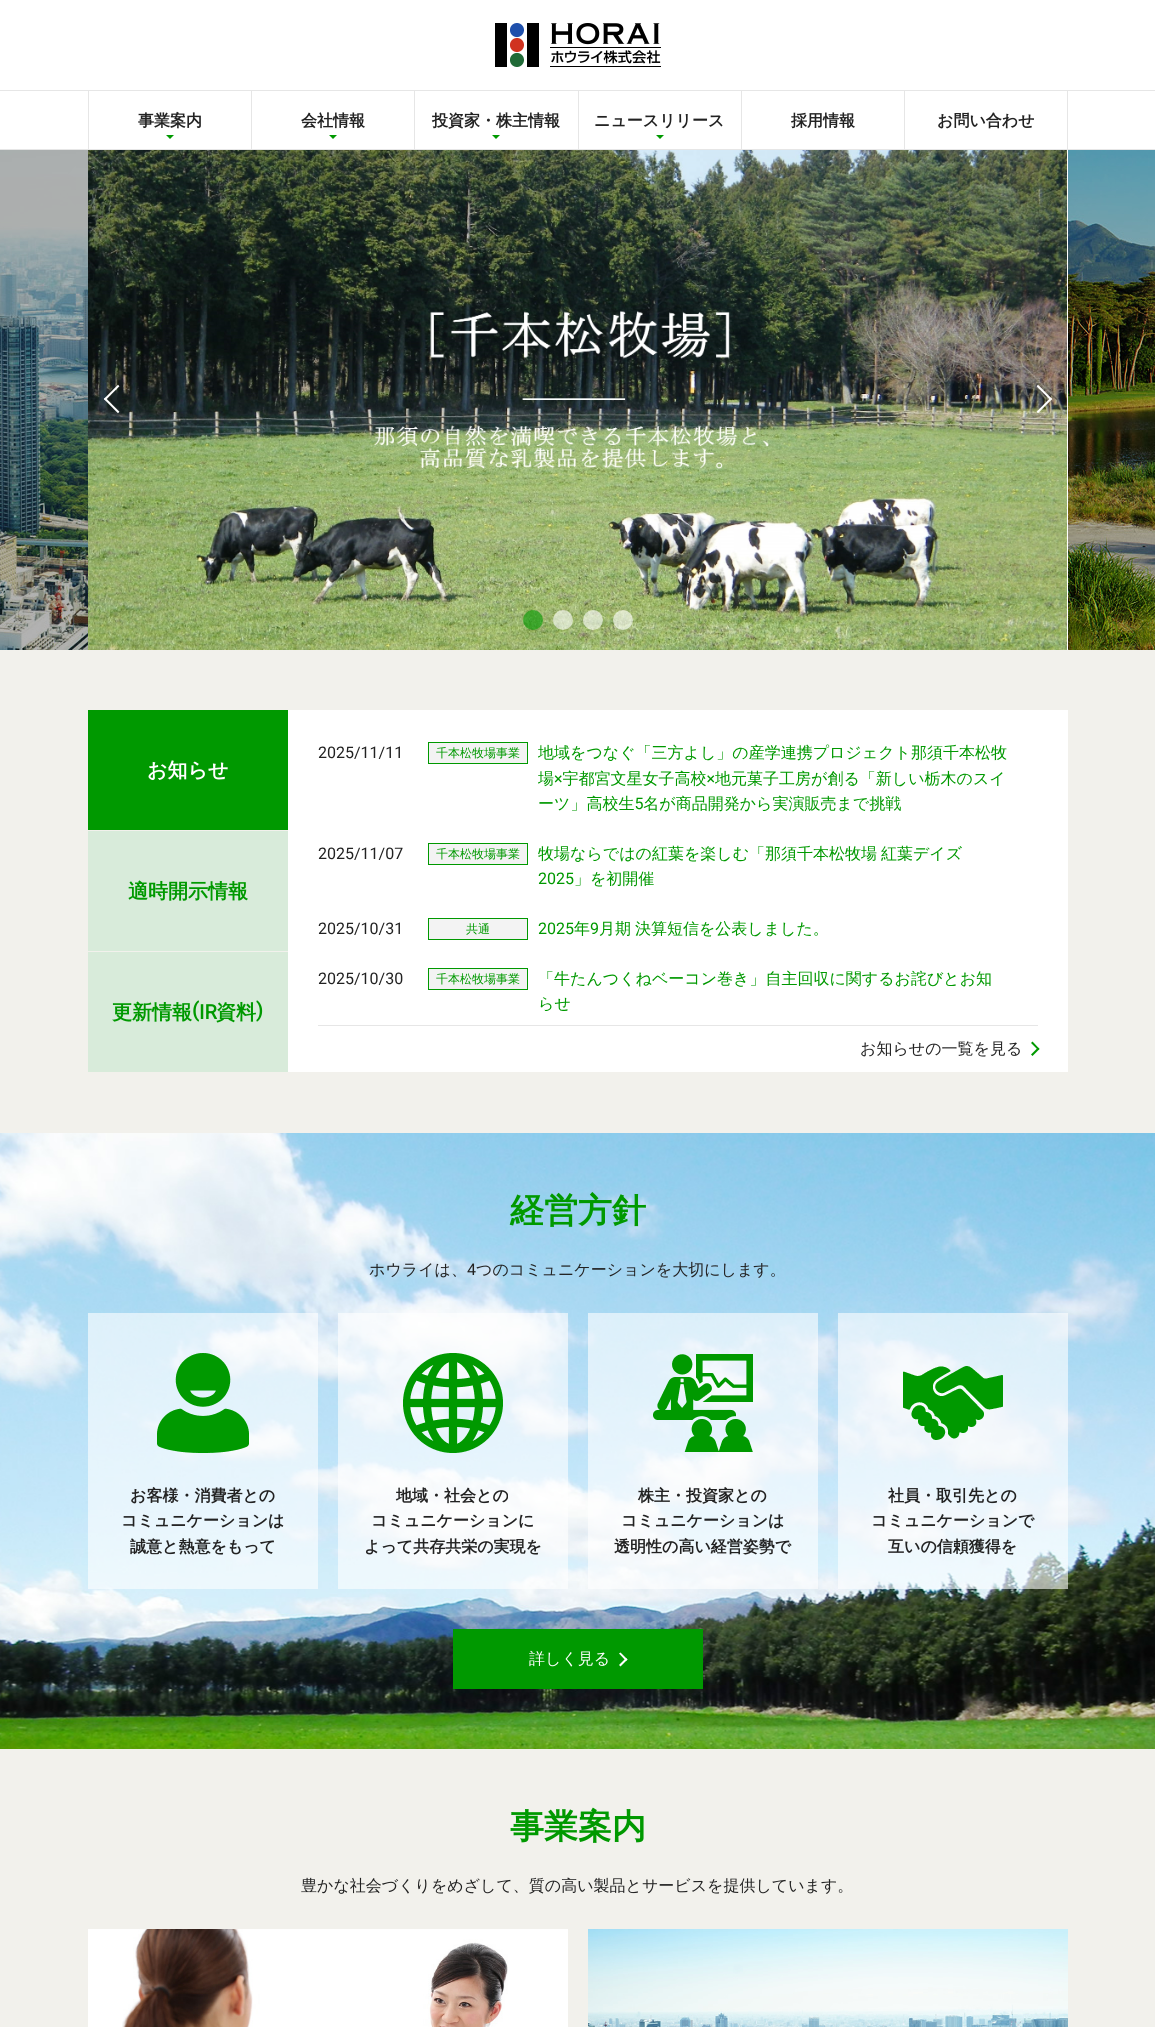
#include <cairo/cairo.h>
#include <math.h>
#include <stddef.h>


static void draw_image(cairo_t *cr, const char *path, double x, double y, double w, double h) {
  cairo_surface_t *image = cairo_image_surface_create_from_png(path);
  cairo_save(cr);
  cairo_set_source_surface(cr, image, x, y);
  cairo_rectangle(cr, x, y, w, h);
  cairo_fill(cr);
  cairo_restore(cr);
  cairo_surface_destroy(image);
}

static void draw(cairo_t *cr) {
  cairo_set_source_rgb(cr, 1, 1, 1);
  cairo_paint(cr);
  draw_image(cr, "images/1.png", 495, 23, 166, 44);
  cairo_set_source_rgb(cr, 230 / 255.0, 230 / 255.0, 230 / 255.0);
  cairo_rectangle(cr, 0, 90, 1155, 1);
  cairo_fill(cr);
  cairo_rectangle(cr, 0, 149, 1155, 1);
  cairo_fill(cr);
  cairo_rectangle(cr, 88, 91, 1, 59);
  cairo_fill(cr);
  cairo_rectangle(cr, 251, 91, 1, 59);
  cairo_fill(cr);
  cairo_set_source_rgb(cr, 0, 153 / 255.0, 0);
  cairo_new_path(cr);
  cairo_move_to(cr, 166, 135);
  cairo_line_to(cr, 174, 135);
  cairo_line_to(cr, 170, 139);
  cairo_close_path(cr);
  cairo_fill(cr);
  cairo_set_source_rgb(cr, 230 / 255.0, 230 / 255.0, 230 / 255.0);
  cairo_rectangle(cr, 414, 91, 1, 59);
  cairo_fill(cr);
  cairo_set_source_rgb(cr, 0, 153 / 255.0, 0);
  cairo_new_path(cr);
  cairo_move_to(cr, 329, 135);
  cairo_line_to(cr, 337, 135);
  cairo_line_to(cr, 333, 139);
  cairo_close_path(cr);
  cairo_fill(cr);
  cairo_set_source_rgb(cr, 230 / 255.0, 230 / 255.0, 230 / 255.0);
  cairo_rectangle(cr, 578, 91, 1, 59);
  cairo_fill(cr);
  cairo_set_source_rgb(cr, 0, 153 / 255.0, 0);
  cairo_new_path(cr);
  cairo_move_to(cr, 492, 135);
  cairo_line_to(cr, 500, 135);
  cairo_line_to(cr, 496, 139);
  cairo_close_path(cr);
  cairo_fill(cr);
  cairo_set_source_rgb(cr, 230 / 255.0, 230 / 255.0, 230 / 255.0);
  cairo_rectangle(cr, 741, 91, 1, 59);
  cairo_fill(cr);
  cairo_set_source_rgb(cr, 0, 153 / 255.0, 0);
  cairo_new_path(cr);
  cairo_move_to(cr, 656, 135);
  cairo_line_to(cr, 664, 135);
  cairo_line_to(cr, 660, 139);
  cairo_close_path(cr);
  cairo_fill(cr);
  cairo_set_source_rgb(cr, 230 / 255.0, 230 / 255.0, 230 / 255.0);
  cairo_rectangle(cr, 904, 91, 1, 59);
  cairo_fill(cr);
  cairo_rectangle(cr, 1067, 91, 1, 59);
  cairo_fill(cr);
  draw_image(cr, "images/2.png", 0, 150, 1155, 500);
  cairo_set_source_rgb(cr, 242 / 255.0, 241 / 255.0, 236 / 255.0);
  cairo_rectangle(cr, 0, 650, 1155, 483);
  cairo_fill(cr);
  cairo_set_source_rgb(cr, 0, 153 / 255.0, 0);
  cairo_rectangle(cr, 88, 710, 200, 120);
  cairo_fill(cr);
  cairo_set_source_rgb(cr, 216 / 255.0, 235 / 255.0, 218 / 255.0);
  cairo_rectangle(cr, 88, 831, 200, 120);
  cairo_fill(cr);
  cairo_rectangle(cr, 88, 952, 200, 120);
  cairo_fill(cr);
  cairo_set_source_rgb(cr, 1, 1, 1);
  cairo_rectangle(cr, 288, 710, 780, 362);
  cairo_fill(cr);
  draw_image(cr, "images/3.png", 318, 742, 689, 269);
  cairo_set_source_rgb(cr, 230 / 255.0, 230 / 255.0, 230 / 255.0);
  cairo_rectangle(cr, 318, 1025, 720, 1);
  cairo_fill(cr);
  cairo_set_source_rgb(cr, 0, 153 / 255.0, 0);
  cairo_new_path(cr);
  cairo_move_to(cr, 1032.5, 1041.5);
  cairo_line_to(cr, 1039.5, 1049);
  cairo_line_to(cr, 1038, 1050);
  cairo_line_to(cr, 1031, 1043);
  cairo_close_path(cr);
  cairo_fill(cr);
  cairo_new_path(cr);
  cairo_move_to(cr, 1038, 1047.5);
  cairo_line_to(cr, 1039.5, 1049);
  cairo_line_to(cr, 1032.5, 1056);
  cairo_line_to(cr, 1031, 1054.5);
  cairo_close_path(cr);
  cairo_fill(cr);
  draw_image(cr, "images/4.png", 0, 1133, 1155, 616);
  cairo_set_source_rgba(cr, 1, 1, 1, 0.6);
  cairo_rectangle(cr, 88, 1313, 230, 276);
  cairo_fill(cr);
  draw_image(cr, "images/5.png", 157, 1353, 92, 100);
  cairo_rectangle(cr, 338, 1313, 230, 276);
  cairo_fill(cr);
  draw_image(cr, "images/6.png", 403, 1353, 100, 100);
  cairo_rectangle(cr, 588, 1313, 230, 276);
  cairo_fill(cr);
  draw_image(cr, "images/7.png", 653, 1354, 100, 98);
  cairo_rectangle(cr, 838, 1313, 230, 276);
  cairo_fill(cr);
  draw_image(cr, "images/8.png", 903, 1366, 100, 74);
  cairo_set_source_rgb(cr, 0, 153 / 255.0, 0);
  cairo_rectangle(cr, 453, 1629, 250, 60);
  cairo_fill(cr);
  cairo_set_source_rgb(cr, 1, 1, 1);
  cairo_new_path(cr);
  cairo_move_to(cr, 620.5, 1652.5);
  cairo_line_to(cr, 627.5, 1659.5);
  cairo_line_to(cr, 626, 1661);
  cairo_line_to(cr, 619, 1653.5);
  cairo_close_path(cr);
  cairo_fill(cr);
  cairo_new_path(cr);
  cairo_move_to(cr, 626, 1658);
  cairo_line_to(cr, 627.5, 1659.5);
  cairo_line_to(cr, 620.5, 1666.5);
  cairo_line_to(cr, 619, 1665);
  cairo_close_path(cr);
  cairo_fill(cr);
  cairo_set_source_rgb(cr, 242 / 255.0, 241 / 255.0, 236 / 255.0);
  cairo_rectangle(cr, 0, 1749, 1155, 278);
  cairo_fill(cr);
  cairo_set_source_rgb(cr, 1, 1, 1);
  cairo_rectangle(cr, 88, 1929, 480, 98);
  cairo_fill(cr);
  draw_image(cr, "images/9.png", 122, 1929, 386, 98);
  draw_image(cr, "images/10.png", 588, 1929, 480, 98);
  cairo_select_font_face(cr, "WenQuanYi Zen Hei", CAIRO_FONT_SLANT_NORMAL, CAIRO_FONT_WEIGHT_BOLD);
  cairo_set_font_size(cr, 16);
  cairo_set_source_rgb(cr, 34 / 255.0, 34 / 255.0, 34 / 255.0);
  cairo_move_to(cr, 138, 126);
  cairo_show_text(cr, "事業案内");
  cairo_move_to(cr, 301, 126);
  cairo_show_text(cr, "会社情報");
  cairo_move_to(cr, 432, 126);
  cairo_show_text(cr, "投資家・株主情報");
  cairo_move_to(cr, 594, 126);
  cairo_show_text(cr, "ニュースリリース");
  cairo_move_to(cr, 791, 126);
  cairo_show_text(cr, "採用情報");
  cairo_move_to(cr, 937, 126);
  cairo_show_text(cr, "お問い合わせ");
  cairo_set_font_size(cr, 20);
  cairo_set_source_rgb(cr, 1, 1, 1);
  cairo_move_to(cr, 147, 777);
  cairo_show_text(cr, "お知らせ");
  cairo_set_source_rgb(cr, 0, 153 / 255.0, 0);
  cairo_move_to(cr, 128, 898);
  cairo_show_text(cr, "適時開示情報");
  cairo_move_to(cr, 112, 1019);
  cairo_show_text(cr, "更新情報");
  cairo_select_font_face(cr, "Roboto", CAIRO_FONT_SLANT_NORMAL, CAIRO_FONT_WEIGHT_BOLD);
  cairo_move_to(cr, 192, 1017);
  cairo_show_text(cr, "(");
  cairo_move_to(cr, 199, 1019);
  cairo_show_text(cr, "IR");
  cairo_select_font_face(cr, "WenQuanYi Zen Hei", CAIRO_FONT_SLANT_NORMAL, CAIRO_FONT_WEIGHT_BOLD);
  cairo_move_to(cr, 216, 1019);
  cairo_show_text(cr, "資料");
  cairo_select_font_face(cr, "Roboto", CAIRO_FONT_SLANT_NORMAL, CAIRO_FONT_WEIGHT_BOLD);
  cairo_move_to(cr, 256, 1017);
  cairo_show_text(cr, ")");
  cairo_select_font_face(cr, "WenQuanYi Zen Hei Medium", CAIRO_FONT_SLANT_NORMAL, CAIRO_FONT_WEIGHT_NORMAL);
  cairo_set_font_size(cr, 16);
  cairo_set_source_rgb(cr, 34 / 255.0, 34 / 255.0, 34 / 255.0);
  cairo_move_to(cr, 860, 1054);
  cairo_show_text(cr, "お知らせの一覧を見る");
  cairo_select_font_face(cr, "WenQuanYi Zen Hei", CAIRO_FONT_SLANT_NORMAL, CAIRO_FONT_WEIGHT_BOLD);
  cairo_set_font_size(cr, 34);
  cairo_set_source_rgb(cr, 0, 153 / 255.0, 0);
  cairo_move_to(cr, 510, 1222);
  cairo_show_text(cr, "経営方針");
  cairo_select_font_face(cr, "WenQuanYi Zen Hei Medium", CAIRO_FONT_SLANT_NORMAL, CAIRO_FONT_WEIGHT_NORMAL);
  cairo_set_font_size(cr, 16);
  cairo_set_source_rgb(cr, 34 / 255.0, 34 / 255.0, 34 / 255.0);
  cairo_move_to(cr, 369, 1275);
  cairo_show_text(cr, "ホウライは、");
  cairo_select_font_face(cr, "Roboto", CAIRO_FONT_SLANT_NORMAL, CAIRO_FONT_WEIGHT_NORMAL);
  cairo_move_to(cr, 467, 1275);
  cairo_show_text(cr, "4");
  cairo_select_font_face(cr, "WenQuanYi Zen Hei Medium", CAIRO_FONT_SLANT_NORMAL, CAIRO_FONT_WEIGHT_NORMAL);
  cairo_move_to(cr, 476, 1275);
  cairo_show_text(cr, "つのコミュニケーションを大切にします。");
  cairo_select_font_face(cr, "WenQuanYi Zen Hei", CAIRO_FONT_SLANT_NORMAL, CAIRO_FONT_WEIGHT_BOLD);
  cairo_move_to(cr, 130, 1501);
  cairo_show_text(cr, "お客様・消費者との");
  cairo_move_to(cr, 121, 1526);
  cairo_show_text(cr, "コミュニケーションは");
  cairo_move_to(cr, 130, 1552);
  cairo_show_text(cr, "誠意と熱意をもって");
  cairo_move_to(cr, 396, 1501);
  cairo_show_text(cr, "地域・社会との");
  cairo_move_to(cr, 371, 1526);
  cairo_show_text(cr, "コミュニケーションに");
  cairo_move_to(cr, 364, 1552);
  cairo_show_text(cr, "よって共存共栄の実現を");
  cairo_move_to(cr, 638, 1501);
  cairo_show_text(cr, "株主・投資家との");
  cairo_move_to(cr, 621, 1526);
  cairo_show_text(cr, "コミュニケーションは");
  cairo_move_to(cr, 614, 1552);
  cairo_show_text(cr, "透明性の高い経営姿勢で");
  cairo_move_to(cr, 888, 1501);
  cairo_show_text(cr, "社員・取引先との");
  cairo_move_to(cr, 871, 1526);
  cairo_show_text(cr, "コミュニケーションで");
  cairo_move_to(cr, 888, 1552);
  cairo_show_text(cr, "互いの信頼獲得を");
  cairo_select_font_face(cr, "WenQuanYi Zen Hei Medium", CAIRO_FONT_SLANT_NORMAL, CAIRO_FONT_WEIGHT_NORMAL);
  cairo_set_source_rgb(cr, 1, 1, 1);
  cairo_move_to(cr, 529, 1664);
  cairo_show_text(cr, "詳しく見る");
  cairo_select_font_face(cr, "WenQuanYi Zen Hei", CAIRO_FONT_SLANT_NORMAL, CAIRO_FONT_WEIGHT_BOLD);
  cairo_set_font_size(cr, 34);
  cairo_set_source_rgb(cr, 0, 153 / 255.0, 0);
  cairo_move_to(cr, 510, 1838);
  cairo_show_text(cr, "事業案内");
  cairo_select_font_face(cr, "WenQuanYi Zen Hei Medium", CAIRO_FONT_SLANT_NORMAL, CAIRO_FONT_WEIGHT_NORMAL);
  cairo_set_font_size(cr, 16);
  cairo_set_source_rgb(cr, 34 / 255.0, 34 / 255.0, 34 / 255.0);
  cairo_move_to(cr, 301, 1891);
  cairo_show_text(cr, "豊かな社会づくりをめざして、質の高い製品とサービスを提供しています。");
}

int main(void) {
  cairo_surface_t *surface = cairo_image_surface_create(CAIRO_FORMAT_RGB24, 1155, 2027);
  cairo_t *cr = cairo_create(surface);
  cairo_font_options_t *options = cairo_font_options_create();
  cairo_font_options_set_hint_metrics(options, CAIRO_HINT_METRICS_OFF);
  cairo_font_options_set_hint_style(options, CAIRO_HINT_STYLE_NONE);
  cairo_set_font_options(cr, options);
  cairo_set_miter_limit(cr, 4);
  draw(cr);
  cairo_surface_write_to_png(surface, "out.png");
  cairo_font_options_destroy(options);
  cairo_destroy(cr);
  cairo_surface_destroy(surface);
  return 0;
}
